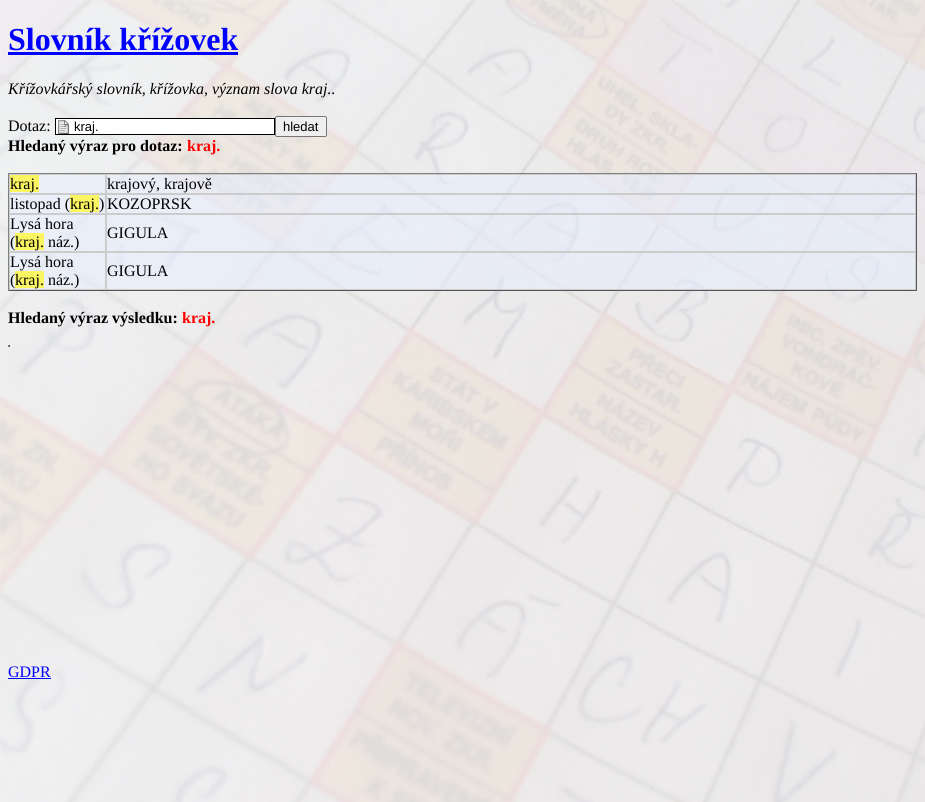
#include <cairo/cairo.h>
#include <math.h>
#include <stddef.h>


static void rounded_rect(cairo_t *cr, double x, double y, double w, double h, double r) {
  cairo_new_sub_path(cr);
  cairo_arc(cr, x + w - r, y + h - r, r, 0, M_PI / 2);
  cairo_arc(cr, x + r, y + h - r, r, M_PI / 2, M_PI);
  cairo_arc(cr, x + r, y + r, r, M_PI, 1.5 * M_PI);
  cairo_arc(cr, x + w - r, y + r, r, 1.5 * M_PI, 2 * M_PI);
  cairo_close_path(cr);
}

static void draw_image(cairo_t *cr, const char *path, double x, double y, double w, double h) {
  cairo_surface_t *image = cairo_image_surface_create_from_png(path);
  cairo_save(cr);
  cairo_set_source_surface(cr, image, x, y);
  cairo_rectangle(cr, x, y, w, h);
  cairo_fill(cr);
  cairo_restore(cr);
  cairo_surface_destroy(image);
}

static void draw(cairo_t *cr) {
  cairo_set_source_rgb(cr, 1, 1, 1);
  cairo_paint(cr);
  draw_image(cr, "images/1.png", 0, 0, 925, 802);
  cairo_set_source_rgb(cr, 0, 0, 1);
  cairo_rectangle(cr, 8, 52, 230, 3);
  cairo_fill(cr);
  cairo_set_source_rgb(cr, 1, 1, 1);
  cairo_rectangle(cr, 56, 119, 218, 15);
  cairo_fill(cr);
  draw_image(cr, "images/2.png", 58, 120, 11, 14);
  cairo_rectangle(cr, 55.5, 118.5, 219, 16);
  cairo_set_source_rgb(cr, 0, 0, 0);
  cairo_set_line_width(cr, 1);
  cairo_stroke(cr);
  cairo_set_source_rgb(cr, 239 / 255.0, 239 / 255.0, 239 / 255.0);
  rounded_rect(cr, 275.5, 116.5, 51, 20, 1.5);
  cairo_fill_preserve(cr);
  cairo_set_source_rgb(cr, 118 / 255.0, 118 / 255.0, 118 / 255.0);
  cairo_stroke(cr);
  cairo_set_source_rgba(cr, 231 / 255.0, 239 / 255.0, 1, 0.5);
  cairo_rectangle(cr, 10, 175, 905, 114);
  cairo_fill(cr);
  cairo_set_source_rgb(cr, 128 / 255.0, 128 / 255.0, 128 / 255.0);
  cairo_rectangle(cr, 8, 173, 909, 1);
  cairo_fill(cr);
  cairo_set_source_rgb(cr, 85 / 255.0, 85 / 255.0, 85 / 255.0);
  cairo_rectangle(cr, 916, 173, 1, 118);
  cairo_fill(cr);
  cairo_rectangle(cr, 8, 290, 909, 1);
  cairo_fill(cr);
  cairo_set_source_rgb(cr, 128 / 255.0, 128 / 255.0, 128 / 255.0);
  cairo_rectangle(cr, 8, 173, 1, 118);
  cairo_fill(cr);
  cairo_rectangle(cr, 9.5, 174.5, 96, 19);
  cairo_set_source_rgb(cr, 204 / 255.0, 204 / 255.0, 204 / 255.0);
  cairo_stroke(cr);
  cairo_set_source_rgb(cr, 250 / 255.0, 245 / 255.0, 96 / 255.0);
  cairo_rectangle(cr, 10, 175, 29, 17);
  cairo_fill(cr);
  cairo_rectangle(cr, 106.5, 174.5, 809, 19);
  cairo_set_source_rgb(cr, 204 / 255.0, 204 / 255.0, 204 / 255.0);
  cairo_stroke(cr);
  cairo_rectangle(cr, 9.5, 194.5, 96, 19);
  cairo_stroke(cr);
  cairo_set_source_rgb(cr, 250 / 255.0, 245 / 255.0, 96 / 255.0);
  cairo_rectangle(cr, 70, 195, 29, 17);
  cairo_fill(cr);
  cairo_rectangle(cr, 106.5, 194.5, 809, 19);
  cairo_set_source_rgb(cr, 204 / 255.0, 204 / 255.0, 204 / 255.0);
  cairo_stroke(cr);
  cairo_rectangle(cr, 9.5, 214.5, 96, 37);
  cairo_stroke(cr);
  cairo_set_source_rgb(cr, 250 / 255.0, 245 / 255.0, 96 / 255.0);
  cairo_rectangle(cr, 15, 233, 29, 17);
  cairo_fill(cr);
  cairo_rectangle(cr, 106.5, 214.5, 809, 37);
  cairo_set_source_rgb(cr, 204 / 255.0, 204 / 255.0, 204 / 255.0);
  cairo_stroke(cr);
  cairo_rectangle(cr, 9.5, 252.5, 96, 37);
  cairo_stroke(cr);
  cairo_set_source_rgb(cr, 250 / 255.0, 245 / 255.0, 96 / 255.0);
  cairo_rectangle(cr, 15, 271, 29, 17);
  cairo_fill(cr);
  cairo_rectangle(cr, 106.5, 252.5, 809, 37);
  cairo_set_source_rgb(cr, 204 / 255.0, 204 / 255.0, 204 / 255.0);
  cairo_stroke(cr);
  cairo_set_source_rgb(cr, 85 / 255.0, 85 / 255.0, 85 / 255.0);
  cairo_rectangle(cr, 9, 345, 1, 2);
  cairo_fill(cr);
  cairo_rectangle(cr, 8, 346, 2, 1);
  cairo_fill(cr);
  cairo_set_source_rgb(cr, 128 / 255.0, 128 / 255.0, 128 / 255.0);
  cairo_rectangle(cr, 8, 345, 1, 2);
  cairo_fill(cr);
  cairo_set_source_rgb(cr, 0, 0, 1);
  cairo_rectangle(cr, 8, 678, 43, 1);
  cairo_fill(cr);
  cairo_select_font_face(cr, "Liberation Serif", CAIRO_FONT_SLANT_NORMAL, CAIRO_FONT_WEIGHT_BOLD);
  cairo_set_font_size(cr, 32);
  cairo_move_to(cr, 8, 50);
  cairo_show_text(cr, "Slovník křížovek");
  cairo_select_font_face(cr, "Liberation Serif", CAIRO_FONT_SLANT_ITALIC, CAIRO_FONT_WEIGHT_NORMAL);
  cairo_set_font_size(cr, 16);
  cairo_set_source_rgb(cr, 0, 0, 0);
  cairo_move_to(cr, 8, 94);
  cairo_show_text(cr, "Křížovkářský slovník, křížovka, význam slova kraj..");
  cairo_select_font_face(cr, "Liberation Serif", CAIRO_FONT_SLANT_NORMAL, CAIRO_FONT_WEIGHT_NORMAL);
  cairo_move_to(cr, 8, 131);
  cairo_show_text(cr, "Dotaz:");
  cairo_select_font_face(cr, "Liberation Sans", CAIRO_FONT_SLANT_NORMAL, CAIRO_FONT_WEIGHT_NORMAL);
  cairo_set_font_size(cr, 13);
  cairo_move_to(cr, 74, 131);
  cairo_show_text(cr, "kraj.");
  cairo_move_to(cr, 283, 131);
  cairo_show_text(cr, "hledat");
  cairo_select_font_face(cr, "Liberation Serif", CAIRO_FONT_SLANT_NORMAL, CAIRO_FONT_WEIGHT_BOLD);
  cairo_set_font_size(cr, 16);
  cairo_move_to(cr, 8, 151);
  cairo_show_text(cr, "Hledaný výraz pro dotaz:");
  cairo_set_source_rgb(cr, 1, 0, 0);
  cairo_move_to(cr, 187, 151);
  cairo_show_text(cr, "kraj.");
  cairo_select_font_face(cr, "Liberation Serif", CAIRO_FONT_SLANT_NORMAL, CAIRO_FONT_WEIGHT_NORMAL);
  cairo_set_source_rgb(cr, 0, 0, 0);
  cairo_move_to(cr, 10, 189);
  cairo_show_text(cr, "kraj.");
  cairo_move_to(cr, 107, 189);
  cairo_show_text(cr, "krajový, krajově");
  cairo_move_to(cr, 10, 209);
  cairo_show_text(cr, "listopad (");
  cairo_move_to(cr, 70, 209);
  cairo_show_text(cr, "kraj.)");
  cairo_move_to(cr, 107, 209);
  cairo_show_text(cr, "KOZOPRSK");
  cairo_move_to(cr, 10, 229);
  cairo_show_text(cr, "Lysá hora");
  cairo_move_to(cr, 10, 247);
  cairo_show_text(cr, "(");
  cairo_move_to(cr, 15, 247);
  cairo_show_text(cr, "kraj. náz.)");
  cairo_move_to(cr, 107, 238);
  cairo_show_text(cr, "GIGULA");
  cairo_move_to(cr, 10, 267);
  cairo_show_text(cr, "Lysá hora");
  cairo_move_to(cr, 10, 285);
  cairo_show_text(cr, "(");
  cairo_move_to(cr, 15, 285);
  cairo_show_text(cr, "kraj. náz.)");
  cairo_move_to(cr, 107, 276);
  cairo_show_text(cr, "GIGULA");
  cairo_select_font_face(cr, "Liberation Serif", CAIRO_FONT_SLANT_NORMAL, CAIRO_FONT_WEIGHT_BOLD);
  cairo_move_to(cr, 8, 323);
  cairo_show_text(cr, "Hledaný výraz výsledku:");
  cairo_set_source_rgb(cr, 1, 0, 0);
  cairo_move_to(cr, 182, 323);
  cairo_show_text(cr, "kraj.");
  cairo_select_font_face(cr, "Liberation Serif", CAIRO_FONT_SLANT_NORMAL, CAIRO_FONT_WEIGHT_NORMAL);
  cairo_set_source_rgb(cr, 0, 0, 1);
  cairo_move_to(cr, 8, 677);
  cairo_show_text(cr, "GDPR");
}

int main(void) {
  cairo_surface_t *surface = cairo_image_surface_create(CAIRO_FORMAT_RGB24, 925, 802);
  cairo_t *cr = cairo_create(surface);
  cairo_font_options_t *options = cairo_font_options_create();
  cairo_font_options_set_hint_metrics(options, CAIRO_HINT_METRICS_OFF);
  cairo_font_options_set_hint_style(options, CAIRO_HINT_STYLE_NONE);
  cairo_set_font_options(cr, options);
  cairo_set_miter_limit(cr, 4);
  draw(cr);
  cairo_surface_write_to_png(surface, "out.png");
  cairo_font_options_destroy(options);
  cairo_destroy(cr);
  cairo_surface_destroy(surface);
  return 0;
}
